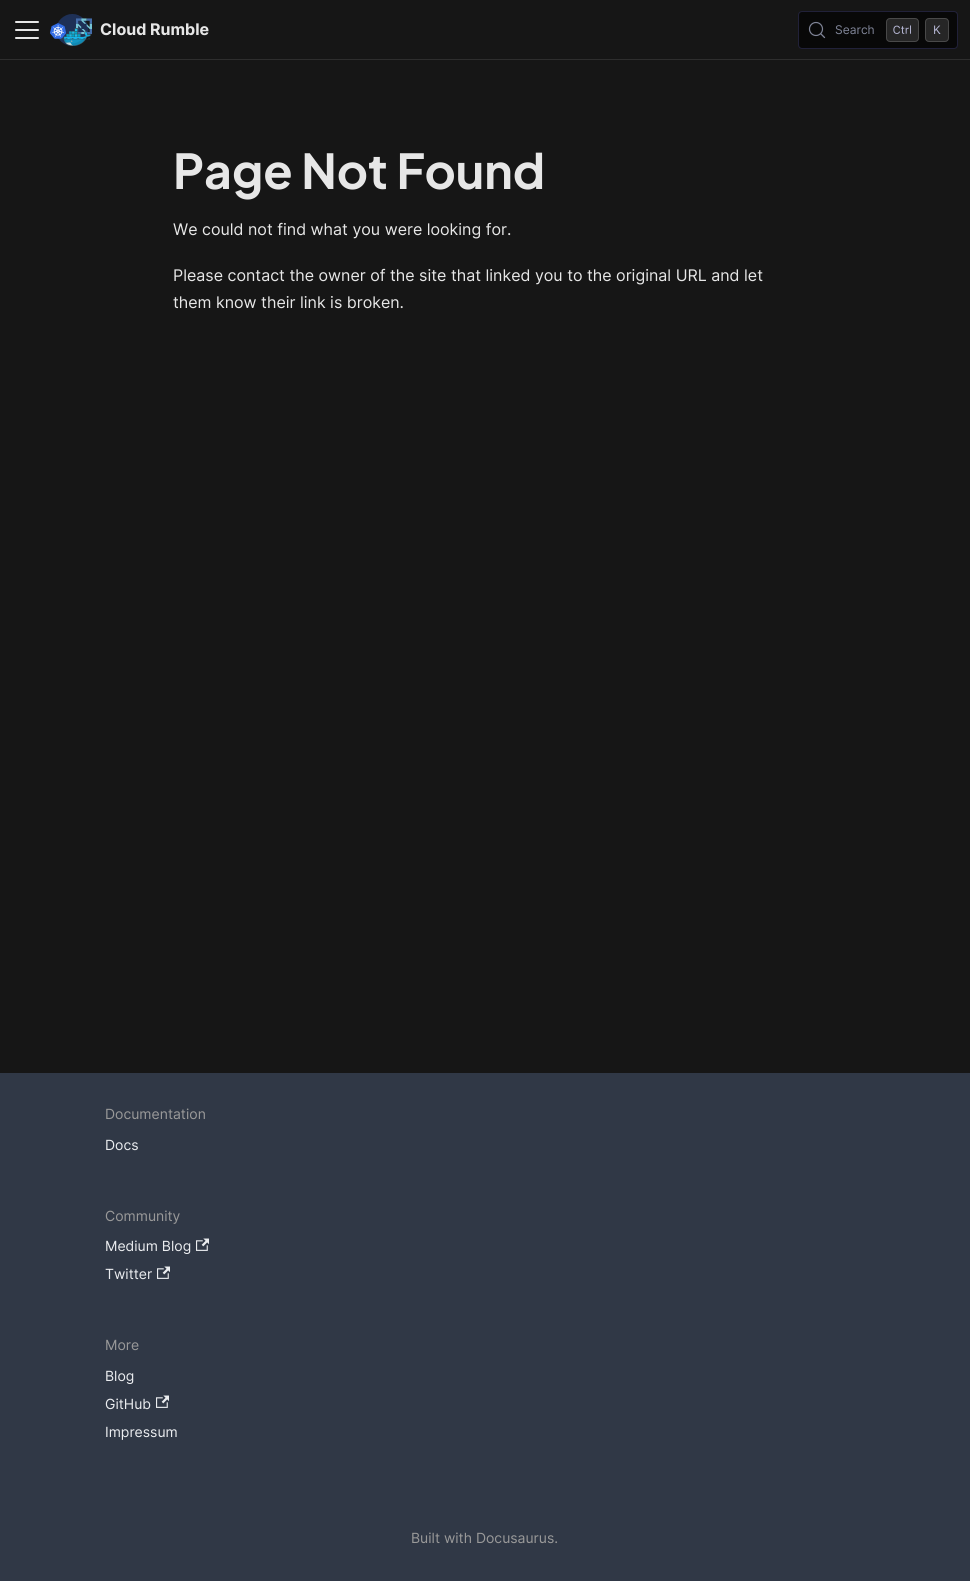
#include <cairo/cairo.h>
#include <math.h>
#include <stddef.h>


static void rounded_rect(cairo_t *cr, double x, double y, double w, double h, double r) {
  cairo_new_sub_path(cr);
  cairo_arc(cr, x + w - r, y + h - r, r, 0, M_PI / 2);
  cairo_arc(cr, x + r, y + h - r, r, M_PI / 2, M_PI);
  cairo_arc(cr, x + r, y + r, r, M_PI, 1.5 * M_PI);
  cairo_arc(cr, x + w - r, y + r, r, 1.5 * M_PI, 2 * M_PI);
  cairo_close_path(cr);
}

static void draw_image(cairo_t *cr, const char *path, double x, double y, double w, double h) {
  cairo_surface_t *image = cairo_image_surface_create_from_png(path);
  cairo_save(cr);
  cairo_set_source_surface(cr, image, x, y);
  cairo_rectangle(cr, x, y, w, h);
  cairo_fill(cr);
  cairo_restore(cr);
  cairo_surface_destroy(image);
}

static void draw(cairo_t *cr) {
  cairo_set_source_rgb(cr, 22 / 255.0, 22 / 255.0, 22 / 255.0);
  cairo_paint(cr);
  cairo_set_source_rgb(cr, 46 / 255.0, 46 / 255.0, 46 / 255.0);
  cairo_rectangle(cr, 0, 59, 970, 1);
  cairo_fill(cr);
  draw_image(cr, "images/1.png", 15, 21, 24, 18);
  draw_image(cr, "images/2.png", 50, 14, 42, 32);
  cairo_set_source_rgb(cr, 8 / 255.0, 8 / 255.0, 8 / 255.0);
  rounded_rect(cr, 798.5, 11.5, 159, 37, 3.5);
  cairo_fill_preserve(cr);
  cairo_set_source_rgb(cr, 33 / 255.0, 33 / 255.0, 57 / 255.0);
  cairo_set_line_width(cr, 1);
  cairo_stroke(cr);
  cairo_arc(cr, 816, 29, 6.5, 0, 2 * M_PI);
  cairo_set_source_rgb(cr, 127 / 255.0, 132 / 255.0, 151 / 255.0);
  cairo_set_line_width(cr, 1.2);
  cairo_stroke(cr);
  cairo_new_path(cr);
  cairo_move_to(cr, 824.5, 37.5);
  cairo_line_to(cr, 821, 34);
  cairo_set_line_width(cr, 1.3);
  cairo_set_line_cap(cr, CAIRO_LINE_CAP_ROUND);
  cairo_set_line_join(cr, CAIRO_LINE_JOIN_ROUND);
  cairo_stroke(cr);
  cairo_set_source_rgb(cr, 38 / 255.0, 38 / 255.0, 38 / 255.0);
  rounded_rect(cr, 886, 18, 33, 24, 4);
  cairo_fill(cr);
  rounded_rect(cr, 886.5, 18.5, 32, 23, 3.5);
  cairo_set_source_rgba(cr, 153 / 255.0, 153 / 255.0, 153 / 255.0, 0.3);
  cairo_set_line_width(cr, 1);
  cairo_set_line_cap(cr, CAIRO_LINE_CAP_BUTT);
  cairo_set_line_join(cr, CAIRO_LINE_JOIN_MITER);
  cairo_stroke(cr);
  draw_image(cr, "images/3.png", 893, 25, 18, 9);
  cairo_set_source_rgb(cr, 38 / 255.0, 38 / 255.0, 38 / 255.0);
  rounded_rect(cr, 925, 18, 24, 24, 4);
  cairo_fill(cr);
  rounded_rect(cr, 925.5, 18.5, 23, 23, 3.5);
  cairo_set_source_rgba(cr, 153 / 255.0, 153 / 255.0, 153 / 255.0, 0.3);
  cairo_stroke(cr);
  draw_image(cr, "images/4.png", 934, 25, 7, 9);
  cairo_set_source_rgb(cr, 48 / 255.0, 56 / 255.0, 70 / 255.0);
  cairo_rectangle(cr, 0, 1073, 970, 508);
  cairo_fill(cr);
  draw_image(cr, "images/5.png", 196, 1238, 13, 13);
  draw_image(cr, "images/5.png", 157, 1266, 13, 13);
  draw_image(cr, "images/5.png", 156, 1395, 13, 13);
  cairo_select_font_face(cr, "Inter", CAIRO_FONT_SLANT_NORMAL, CAIRO_FONT_WEIGHT_BOLD);
  cairo_set_font_size(cr, 16);
  cairo_set_source_rgb(cr, 231 / 255.0, 231 / 255.0, 231 / 255.0);
  cairo_move_to(cr, 100, 35);
  cairo_show_text(cr, "Cloud Rumble");
  cairo_select_font_face(cr, "Inter", CAIRO_FONT_SLANT_NORMAL, CAIRO_FONT_WEIGHT_NORMAL);
  cairo_set_font_size(cr, 12);
  cairo_set_source_rgb(cr, 127 / 255.0, 132 / 255.0, 151 / 255.0);
  cairo_move_to(cr, 835, 34);
  cairo_show_text(cr, "Search");
  cairo_select_font_face(cr, "Plus Jakarta Sans", CAIRO_FONT_SLANT_NORMAL, CAIRO_FONT_WEIGHT_BOLD);
  cairo_set_font_size(cr, 48);
  cairo_set_source_rgb(cr, 231 / 255.0, 231 / 255.0, 231 / 255.0);
  cairo_move_to(cr, 173, 189);
  cairo_show_text(cr, "Page Not Found");
  cairo_select_font_face(cr, "Inter", CAIRO_FONT_SLANT_NORMAL, CAIRO_FONT_WEIGHT_NORMAL);
  cairo_set_font_size(cr, 16);
  cairo_move_to(cr, 173, 235);
  cairo_show_text(cr, "We could not find what you were looking for.");
  cairo_move_to(cr, 173, 281);
  cairo_show_text(cr, "Please contact the owner of the site that linked you to the original URL and let");
  cairo_move_to(cr, 173, 308);
  cairo_show_text(cr, "them know their link is broken.");
  cairo_set_font_size(cr, 14);
  cairo_set_source_rgb(cr, 153 / 255.0, 153 / 255.0, 153 / 255.0);
  cairo_move_to(cr, 105, 1119);
  cairo_show_text(cr, "Documentation");
  cairo_set_source_rgb(cr, 235 / 255.0, 237 / 255.0, 240 / 255.0);
  cairo_move_to(cr, 105, 1150);
  cairo_show_text(cr, "Docs");
  cairo_set_source_rgb(cr, 153 / 255.0, 153 / 255.0, 153 / 255.0);
  cairo_move_to(cr, 105, 1221);
  cairo_show_text(cr, "Community");
  cairo_set_source_rgb(cr, 235 / 255.0, 237 / 255.0, 240 / 255.0);
  cairo_move_to(cr, 105, 1251);
  cairo_show_text(cr, "Medium Blog");
  cairo_move_to(cr, 105, 1279);
  cairo_show_text(cr, "Twitter");
  cairo_set_source_rgb(cr, 153 / 255.0, 153 / 255.0, 153 / 255.0);
  cairo_move_to(cr, 105, 1350);
  cairo_show_text(cr, "More");
  cairo_set_source_rgb(cr, 235 / 255.0, 237 / 255.0, 240 / 255.0);
  cairo_move_to(cr, 105, 1381);
  cairo_show_text(cr, "Blog");
  cairo_move_to(cr, 105, 1409);
  cairo_show_text(cr, "GitHub");
  cairo_move_to(cr, 105, 1437);
  cairo_show_text(cr, "Impressum");
  cairo_set_source_rgb(cr, 153 / 255.0, 153 / 255.0, 153 / 255.0);
  cairo_move_to(cr, 411, 1543);
  cairo_show_text(cr, "Built with Docusaurus.");
}

int main(void) {
  cairo_surface_t *surface = cairo_image_surface_create(CAIRO_FORMAT_RGB24, 970, 1581);
  cairo_t *cr = cairo_create(surface);
  cairo_font_options_t *options = cairo_font_options_create();
  cairo_font_options_set_hint_metrics(options, CAIRO_HINT_METRICS_OFF);
  cairo_font_options_set_hint_style(options, CAIRO_HINT_STYLE_NONE);
  cairo_set_font_options(cr, options);
  cairo_set_miter_limit(cr, 4);
  draw(cr);
  cairo_surface_write_to_png(surface, "out.png");
  cairo_font_options_destroy(options);
  cairo_destroy(cr);
  cairo_surface_destroy(surface);
  return 0;
}
